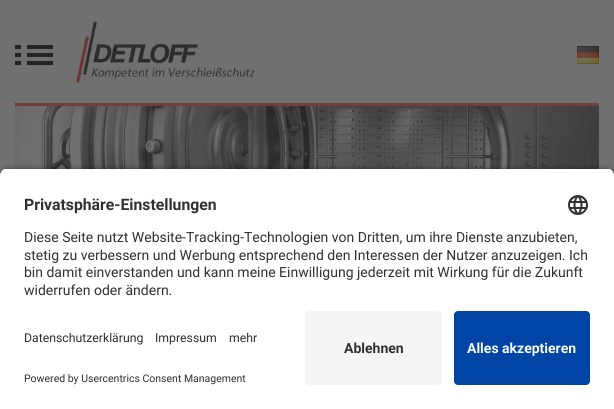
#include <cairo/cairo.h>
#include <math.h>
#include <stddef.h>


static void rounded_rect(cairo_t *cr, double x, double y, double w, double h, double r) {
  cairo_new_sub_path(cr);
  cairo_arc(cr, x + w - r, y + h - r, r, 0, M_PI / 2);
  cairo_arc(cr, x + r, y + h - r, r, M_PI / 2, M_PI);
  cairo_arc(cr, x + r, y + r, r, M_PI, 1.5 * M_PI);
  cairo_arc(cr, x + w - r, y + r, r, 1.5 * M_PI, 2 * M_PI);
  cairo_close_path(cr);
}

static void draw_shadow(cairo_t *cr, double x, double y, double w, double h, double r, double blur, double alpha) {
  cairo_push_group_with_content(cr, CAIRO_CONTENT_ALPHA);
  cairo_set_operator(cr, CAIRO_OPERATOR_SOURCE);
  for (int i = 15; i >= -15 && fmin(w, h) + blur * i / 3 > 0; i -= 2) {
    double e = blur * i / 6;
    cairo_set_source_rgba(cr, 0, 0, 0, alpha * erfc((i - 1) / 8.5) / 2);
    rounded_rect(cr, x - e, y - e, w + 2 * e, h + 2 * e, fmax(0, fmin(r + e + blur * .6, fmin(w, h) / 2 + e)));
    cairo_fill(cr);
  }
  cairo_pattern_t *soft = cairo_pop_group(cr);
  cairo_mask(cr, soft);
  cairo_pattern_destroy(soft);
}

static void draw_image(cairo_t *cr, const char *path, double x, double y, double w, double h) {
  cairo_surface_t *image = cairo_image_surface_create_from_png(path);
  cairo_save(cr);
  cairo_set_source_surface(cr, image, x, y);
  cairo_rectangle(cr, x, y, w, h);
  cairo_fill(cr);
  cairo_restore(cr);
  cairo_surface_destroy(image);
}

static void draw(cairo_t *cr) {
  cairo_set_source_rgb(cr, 112 / 255.0, 112 / 255.0, 112 / 255.0);
  cairo_paint(cr);
  draw_image(cr, "images/1.png", 15, 45, 38, 20);
  draw_image(cr, "images/2.png", 75, 21, 180, 62);
  draw_image(cr, "images/3.png", 577, 46, 22, 18);
  cairo_set_source_rgb(cr, 112 / 255.0, 63 / 255.0, 62 / 255.0);
  cairo_rectangle(cr, 15, 103, 584, 3);
  cairo_fill(cr);
  draw_image(cr, "images/4.png", 15, 106, 584, 63);
  cairo_set_source_rgb(cr, 0, 0, 0);
  draw_shadow(cr, 0, 171, 614, 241, 8, 3.5, 0.8);
  cairo_save(cr);
  cairo_new_path(cr);
  cairo_move_to(cr, 8, 168);
  cairo_line_to(cr, 606, 168);
  cairo_curve_to(cr, 610.5, 168, 614, 171.5, 614, 176);
  cairo_line_to(cr, 614, 303);
  cairo_line_to(cr, 0, 303);
  cairo_line_to(cr, 0, 176);
  cairo_curve_to(cr, 0, 171.5, 3.5, 168, 8, 168);
  cairo_close_path(cr);
  cairo_clip(cr);
  cairo_set_source_rgb(cr, 1, 1, 1);
  cairo_rectangle(cr, 0, 169, 614, 134);
  cairo_fill(cr);
  cairo_restore(cr);
  draw_image(cr, "images/5.png", 568, 195, 20, 20);
  cairo_set_source_rgb(cr, 1, 1, 1);
  cairo_rectangle(cr, 0, 303, 614, 106);
  cairo_fill(cr);
  cairo_set_source_rgb(cr, 245 / 255.0, 245 / 255.0, 245 / 255.0);
  rounded_rect(cr, 305, 311, 137, 74, 4);
  cairo_fill(cr);
  cairo_set_source_rgb(cr, 0, 69 / 255.0, 165 / 255.0);
  rounded_rect(cr, 454, 311, 136, 74, 4);
  cairo_fill(cr);
  cairo_select_font_face(cr, "Roboto", CAIRO_FONT_SLANT_NORMAL, CAIRO_FONT_WEIGHT_BOLD);
  cairo_set_font_size(cr, 15.75);
  cairo_set_source_rgb(cr, 48 / 255.0, 48 / 255.0, 48 / 255.0);
  cairo_move_to(cr, 24, 210);
  cairo_show_text(cr, "Privatsphäre-Einstellungen");
  cairo_select_font_face(cr, "Roboto", CAIRO_FONT_SLANT_NORMAL, CAIRO_FONT_WEIGHT_NORMAL);
  cairo_set_font_size(cr, 14);
  cairo_move_to(cr, 24, 242);
  cairo_show_text(cr, "Diese Seite nutzt Website-Tracking-Technologien von Dritten, um ihre Dienste anzubieten,");
  cairo_move_to(cr, 24, 260);
  cairo_show_text(cr, "stetig zu verbessern und Werbung entsprechend den Interessen der Nutzer anzuzeigen. Ich");
  cairo_move_to(cr, 24, 277);
  cairo_show_text(cr, "bin damit einverstanden und kann meine Einwilligung jederzeit mit Wirkung für die Zukunft");
  cairo_move_to(cr, 24, 295);
  cairo_show_text(cr, "widerrufen oder ändern.");
  cairo_set_font_size(cr, 12.25);
  cairo_move_to(cr, 24, 342);
  cairo_show_text(cr, "Datenschutzerklärung");
  cairo_move_to(cr, 155, 342);
  cairo_show_text(cr, "Impressum");
  cairo_move_to(cr, 229, 342);
  cairo_show_text(cr, "mehr");
  cairo_set_font_size(cr, 10.5);
  cairo_move_to(cr, 24, 382);
  cairo_show_text(cr, "Powered by Usercentrics Consent Management");
  cairo_select_font_face(cr, "Roboto", CAIRO_FONT_SLANT_NORMAL, CAIRO_FONT_WEIGHT_BOLD);
  cairo_set_font_size(cr, 14);
  cairo_move_to(cr, 344, 353);
  cairo_show_text(cr, "Ablehnen");
  cairo_set_source_rgb(cr, 250 / 255.0, 250 / 255.0, 250 / 255.0);
  cairo_move_to(cr, 467, 353);
  cairo_show_text(cr, "Alles akzeptieren");
}

int main(void) {
  cairo_surface_t *surface = cairo_image_surface_create(CAIRO_FORMAT_RGB24, 614, 409);
  cairo_t *cr = cairo_create(surface);
  cairo_font_options_t *options = cairo_font_options_create();
  cairo_font_options_set_hint_metrics(options, CAIRO_HINT_METRICS_OFF);
  cairo_font_options_set_hint_style(options, CAIRO_HINT_STYLE_NONE);
  cairo_set_font_options(cr, options);
  cairo_set_miter_limit(cr, 4);
  draw(cr);
  cairo_surface_write_to_png(surface, "out.png");
  cairo_font_options_destroy(options);
  cairo_destroy(cr);
  cairo_surface_destroy(surface);
  return 0;
}
